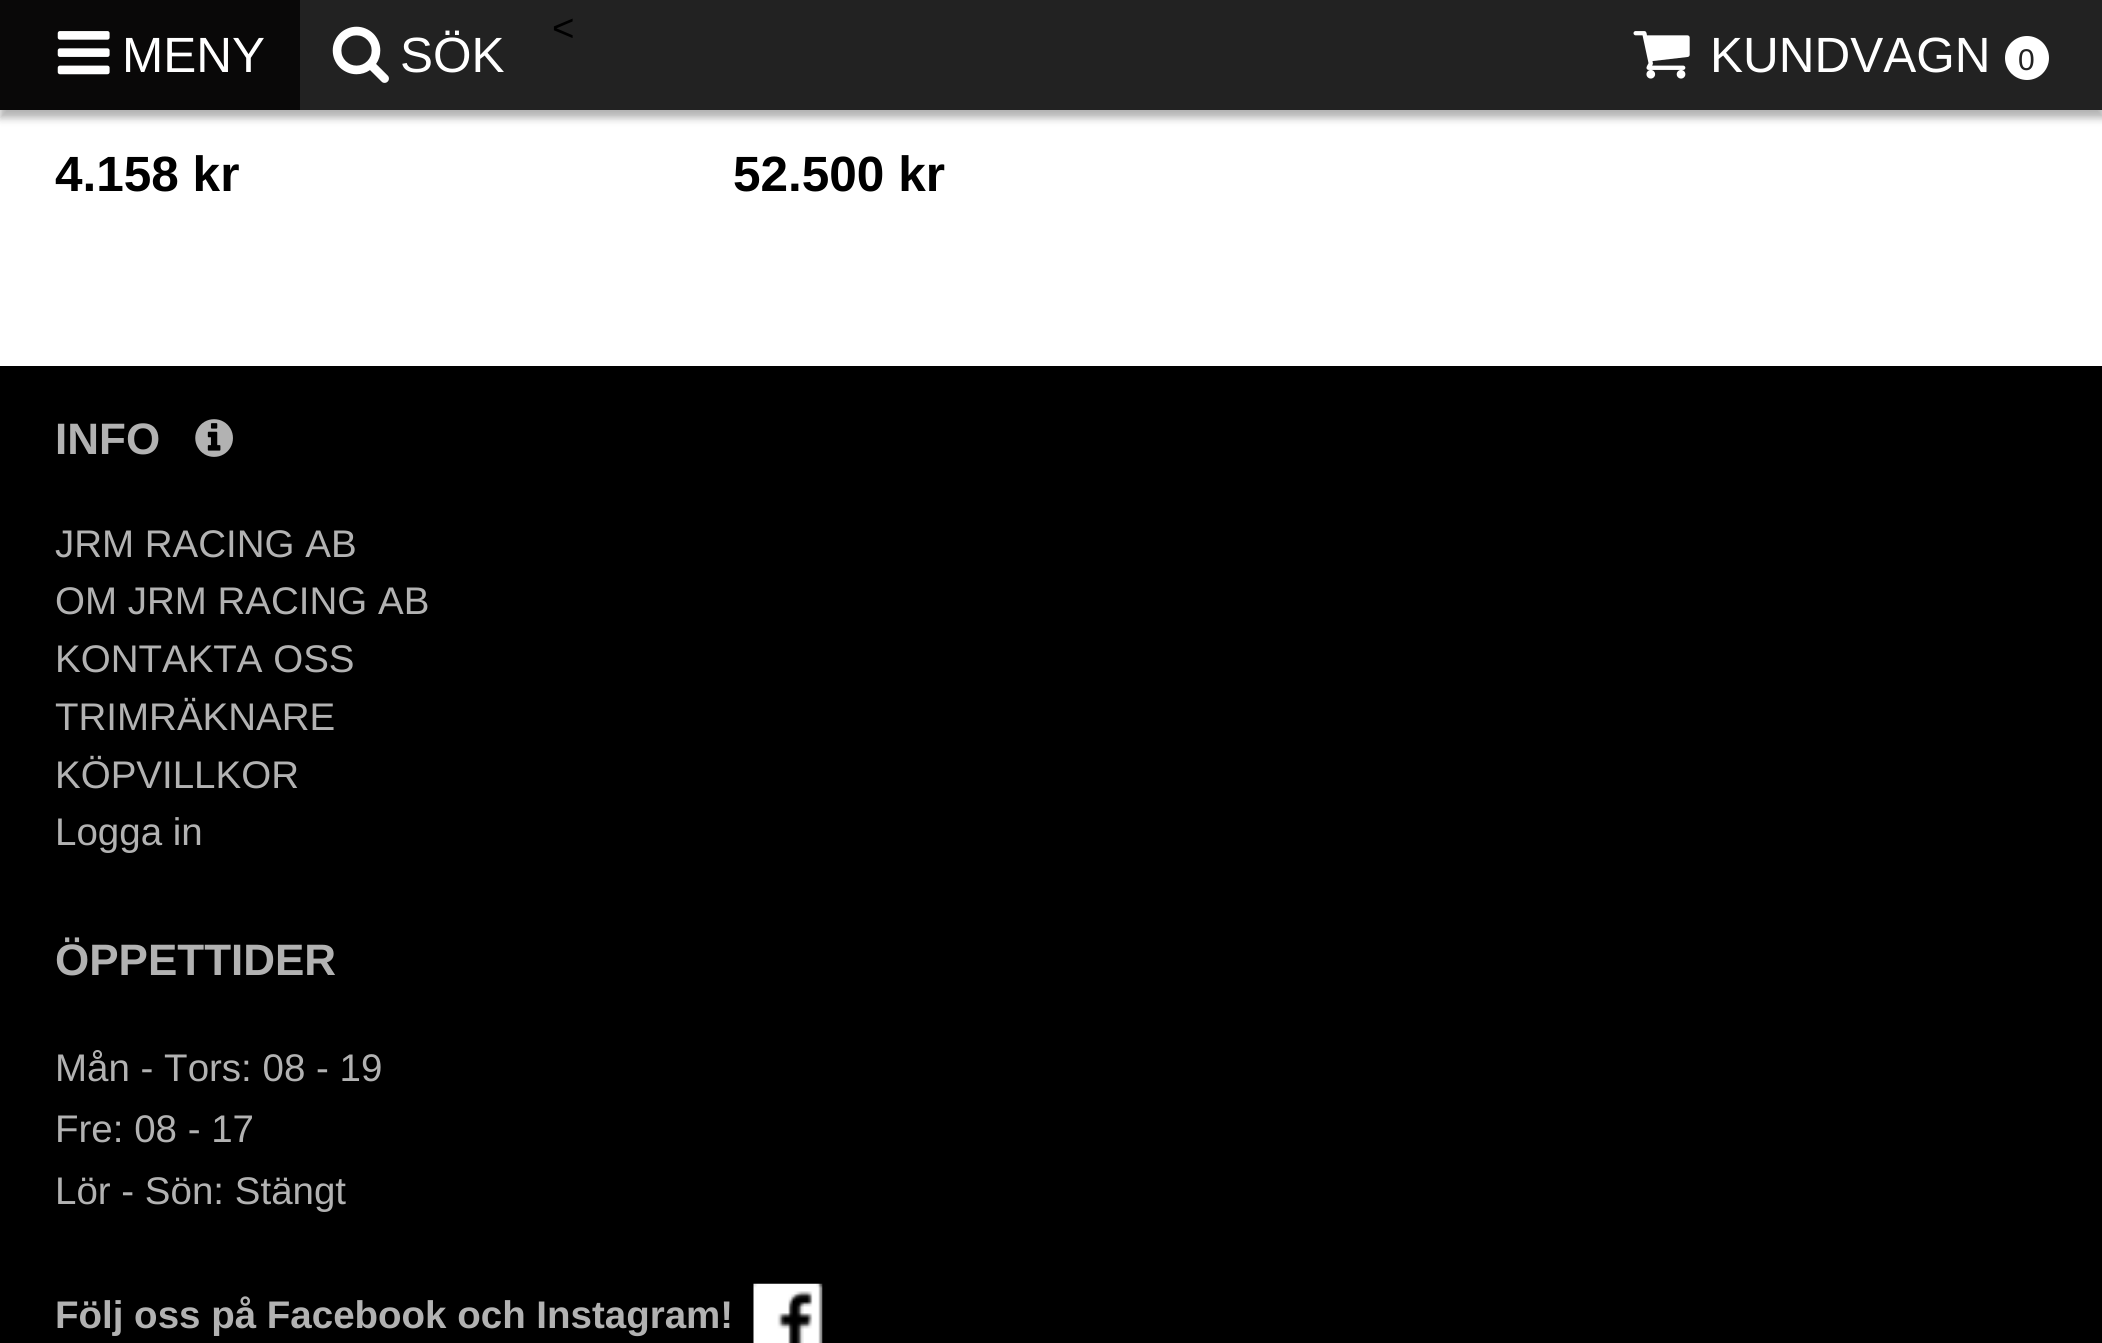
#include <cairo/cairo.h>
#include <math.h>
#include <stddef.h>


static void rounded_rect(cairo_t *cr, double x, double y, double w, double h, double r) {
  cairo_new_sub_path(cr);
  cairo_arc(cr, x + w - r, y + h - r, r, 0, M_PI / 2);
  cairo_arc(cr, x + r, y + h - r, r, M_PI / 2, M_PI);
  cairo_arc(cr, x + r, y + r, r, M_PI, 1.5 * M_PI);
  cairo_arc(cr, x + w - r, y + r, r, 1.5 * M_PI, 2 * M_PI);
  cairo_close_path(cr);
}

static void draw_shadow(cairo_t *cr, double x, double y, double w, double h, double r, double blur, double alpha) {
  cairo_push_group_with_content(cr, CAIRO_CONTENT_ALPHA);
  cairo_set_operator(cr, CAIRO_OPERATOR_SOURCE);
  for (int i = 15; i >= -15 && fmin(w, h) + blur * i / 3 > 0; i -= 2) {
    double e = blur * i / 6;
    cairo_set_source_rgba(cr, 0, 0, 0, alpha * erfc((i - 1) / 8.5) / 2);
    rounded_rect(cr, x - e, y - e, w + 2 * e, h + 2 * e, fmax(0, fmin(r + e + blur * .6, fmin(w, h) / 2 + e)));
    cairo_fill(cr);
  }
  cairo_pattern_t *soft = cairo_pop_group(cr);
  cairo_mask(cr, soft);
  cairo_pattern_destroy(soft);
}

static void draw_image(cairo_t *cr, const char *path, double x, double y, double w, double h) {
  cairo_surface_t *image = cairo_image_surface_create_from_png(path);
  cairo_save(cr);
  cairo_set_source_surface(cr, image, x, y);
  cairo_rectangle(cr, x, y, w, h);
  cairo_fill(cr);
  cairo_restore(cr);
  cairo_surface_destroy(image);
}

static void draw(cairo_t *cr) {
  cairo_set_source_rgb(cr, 1, 1, 1);
  cairo_paint(cr);
  cairo_set_source_rgb(cr, 0, 0, 0);
  draw_shadow(cr, 0, 8, 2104, 110, 0, 4, 0.3);
  cairo_set_source_rgb(cr, 34 / 255.0, 34 / 255.0, 34 / 255.0);
  cairo_rectangle(cr, 300, 0, 1802, 110);
  cairo_fill(cr);
  cairo_set_source_rgb(cr, 9 / 255.0, 8 / 255.0, 8 / 255.0);
  cairo_rectangle(cr, 0, 0, 300, 110);
  cairo_fill(cr);
  draw_image(cr, "images/1.png", 57, 31, 53, 44);
  draw_image(cr, "images/2.png", 332, 26, 57, 57);
  draw_image(cr, "images/3.png", 1633, 31, 57, 48);
  cairo_set_source_rgb(cr, 1, 1, 1);
  cairo_arc(cr, 2027, 58, 22, 0, 2 * M_PI);
  cairo_fill(cr);
  cairo_set_source_rgb(cr, 0, 0, 0);
  cairo_rectangle(cr, 0, 366, 2102, 977);
  cairo_fill(cr);
  draw_image(cr, "images/4.png", 195, 419, 38, 38);
  draw_image(cr, "images/5.png", 753, 1283, 70, 60);
  cairo_select_font_face(cr, "Liberation Sans", CAIRO_FONT_SLANT_NORMAL, CAIRO_FONT_WEIGHT_NORMAL);
  cairo_set_font_size(cr, 49.5);
  cairo_set_source_rgb(cr, 1, 1, 1);
  cairo_move_to(cr, 122, 72);
  cairo_show_text(cr, "MENY");
  cairo_move_to(cr, 400, 72);
  cairo_show_text(cr, "SÖK");
  cairo_set_font_size(cr, 38.5);
  cairo_set_source_rgb(cr, 0, 0, 0);
  cairo_move_to(cr, 552, 41);
  cairo_show_text(cr, "<");
  cairo_set_font_size(cr, 49.5);
  cairo_set_source_rgb(cr, 1, 1, 1);
  cairo_move_to(cr, 1710, 72);
  cairo_show_text(cr, "KUNDVAGN");
  cairo_set_font_size(cr, 30);
  cairo_set_source_rgb(cr, 34 / 255.0, 34 / 255.0, 34 / 255.0);
  cairo_move_to(cr, 2018, 70);
  cairo_show_text(cr, "0");
  cairo_select_font_face(cr, "Liberation Sans", CAIRO_FONT_SLANT_NORMAL, CAIRO_FONT_WEIGHT_BOLD);
  cairo_set_font_size(cr, 49.5);
  cairo_set_source_rgb(cr, 0, 0, 0);
  cairo_move_to(cr, 55, 191);
  cairo_show_text(cr, "4.158 kr");
  cairo_move_to(cr, 733, 191);
  cairo_show_text(cr, "52.500 kr");
  cairo_set_font_size(cr, 44);
  cairo_set_source_rgb(cr, 178 / 255.0, 178 / 255.0, 178 / 255.0);
  cairo_move_to(cr, 55, 454);
  cairo_show_text(cr, "INFO");
  cairo_select_font_face(cr, "Liberation Sans", CAIRO_FONT_SLANT_NORMAL, CAIRO_FONT_WEIGHT_NORMAL);
  cairo_set_font_size(cr, 38.5);
  cairo_move_to(cr, 55, 557);
  cairo_show_text(cr, "JRM RACING AB");
  cairo_move_to(cr, 55, 614);
  cairo_show_text(cr, "OM JRM RACING AB");
  cairo_move_to(cr, 55, 672);
  cairo_show_text(cr, "KONTAKTA OSS");
  cairo_move_to(cr, 55, 730);
  cairo_show_text(cr, "TRIMRÄKNARE");
  cairo_move_to(cr, 55, 788);
  cairo_show_text(cr, "KÖPVILLKOR");
  cairo_move_to(cr, 55, 845);
  cairo_show_text(cr, "Logga in");
  cairo_select_font_face(cr, "Liberation Sans", CAIRO_FONT_SLANT_NORMAL, CAIRO_FONT_WEIGHT_BOLD);
  cairo_set_font_size(cr, 44);
  cairo_move_to(cr, 55, 975);
  cairo_show_text(cr, "ÖPPETTIDER");
  cairo_select_font_face(cr, "Liberation Sans", CAIRO_FONT_SLANT_NORMAL, CAIRO_FONT_WEIGHT_NORMAL);
  cairo_set_font_size(cr, 38.5);
  cairo_move_to(cr, 55, 1081);
  cairo_show_text(cr, "Mån - Tors: 08 - 19");
  cairo_move_to(cr, 55, 1142);
  cairo_show_text(cr, "Fre: 08 - 17");
  cairo_move_to(cr, 55, 1204);
  cairo_show_text(cr, "Lör - Sön: Stängt");
  cairo_select_font_face(cr, "Liberation Sans", CAIRO_FONT_SLANT_NORMAL, CAIRO_FONT_WEIGHT_BOLD);
  cairo_move_to(cr, 55, 1328);
  cairo_show_text(cr, "Följ oss på Facebook och Instagram!");
}

int main(void) {
  cairo_surface_t *surface = cairo_image_surface_create(CAIRO_FORMAT_RGB24, 2102, 1343);
  cairo_t *cr = cairo_create(surface);
  cairo_font_options_t *options = cairo_font_options_create();
  cairo_font_options_set_hint_metrics(options, CAIRO_HINT_METRICS_OFF);
  cairo_font_options_set_hint_style(options, CAIRO_HINT_STYLE_NONE);
  cairo_set_font_options(cr, options);
  cairo_set_miter_limit(cr, 4);
  draw(cr);
  cairo_surface_write_to_png(surface, "out.png");
  cairo_font_options_destroy(options);
  cairo_destroy(cr);
  cairo_surface_destroy(surface);
  return 0;
}
